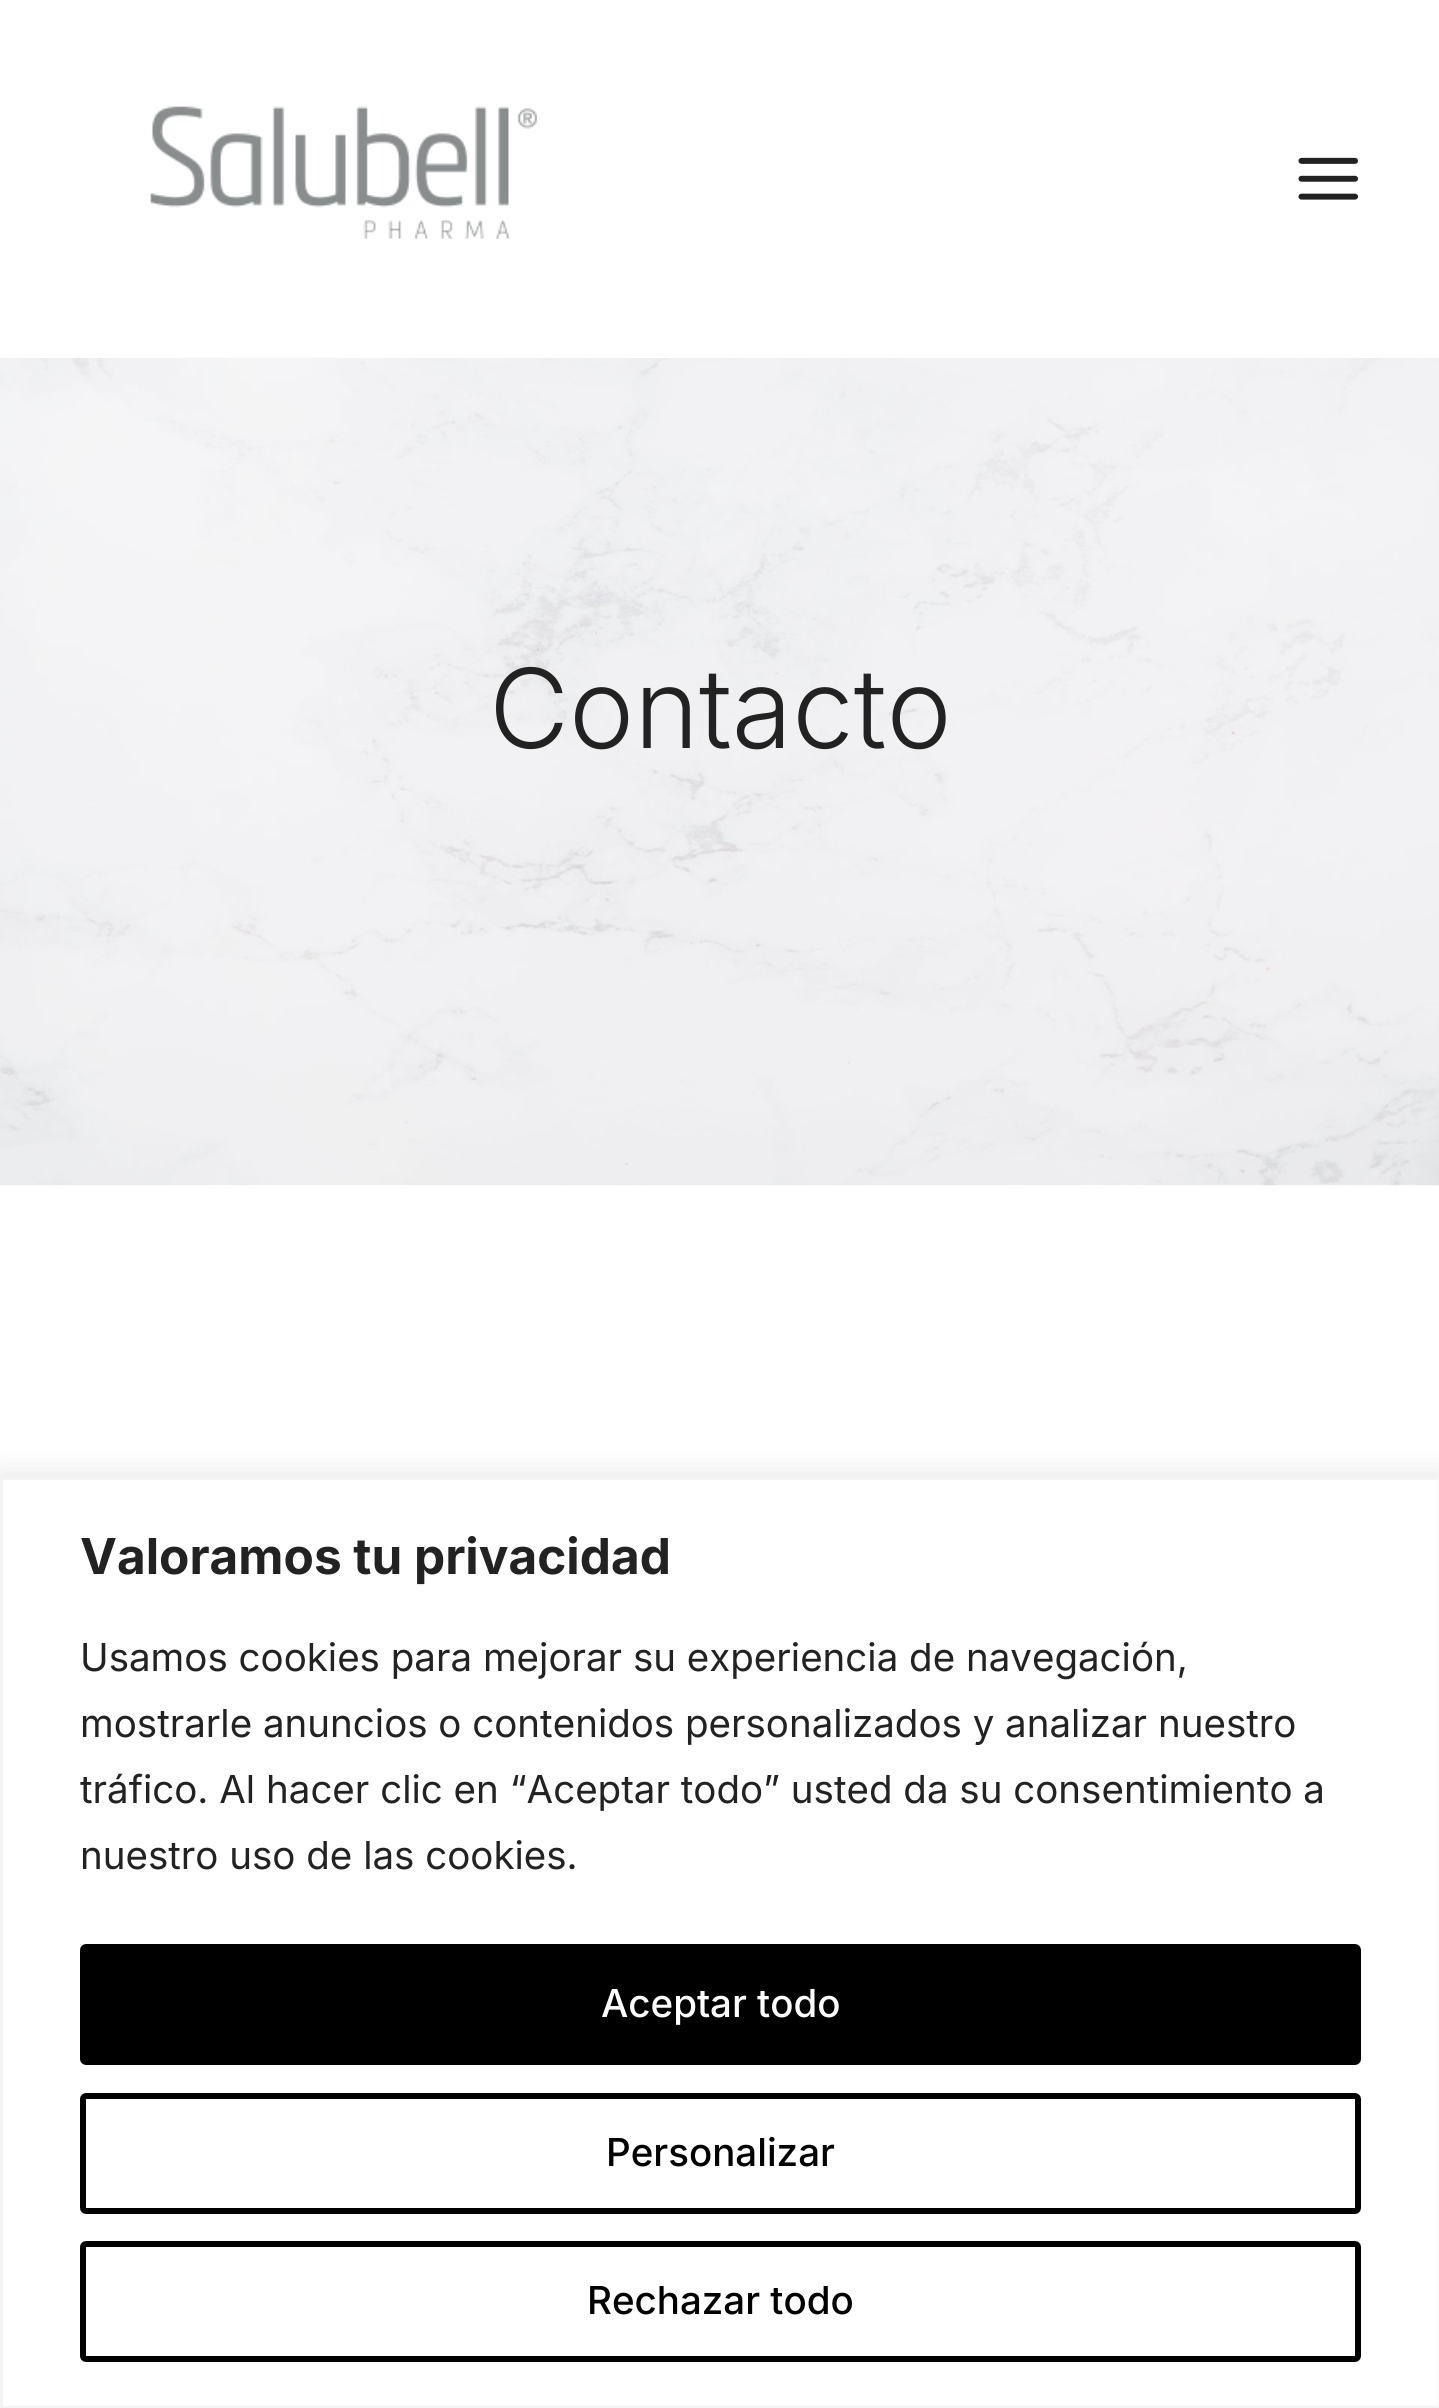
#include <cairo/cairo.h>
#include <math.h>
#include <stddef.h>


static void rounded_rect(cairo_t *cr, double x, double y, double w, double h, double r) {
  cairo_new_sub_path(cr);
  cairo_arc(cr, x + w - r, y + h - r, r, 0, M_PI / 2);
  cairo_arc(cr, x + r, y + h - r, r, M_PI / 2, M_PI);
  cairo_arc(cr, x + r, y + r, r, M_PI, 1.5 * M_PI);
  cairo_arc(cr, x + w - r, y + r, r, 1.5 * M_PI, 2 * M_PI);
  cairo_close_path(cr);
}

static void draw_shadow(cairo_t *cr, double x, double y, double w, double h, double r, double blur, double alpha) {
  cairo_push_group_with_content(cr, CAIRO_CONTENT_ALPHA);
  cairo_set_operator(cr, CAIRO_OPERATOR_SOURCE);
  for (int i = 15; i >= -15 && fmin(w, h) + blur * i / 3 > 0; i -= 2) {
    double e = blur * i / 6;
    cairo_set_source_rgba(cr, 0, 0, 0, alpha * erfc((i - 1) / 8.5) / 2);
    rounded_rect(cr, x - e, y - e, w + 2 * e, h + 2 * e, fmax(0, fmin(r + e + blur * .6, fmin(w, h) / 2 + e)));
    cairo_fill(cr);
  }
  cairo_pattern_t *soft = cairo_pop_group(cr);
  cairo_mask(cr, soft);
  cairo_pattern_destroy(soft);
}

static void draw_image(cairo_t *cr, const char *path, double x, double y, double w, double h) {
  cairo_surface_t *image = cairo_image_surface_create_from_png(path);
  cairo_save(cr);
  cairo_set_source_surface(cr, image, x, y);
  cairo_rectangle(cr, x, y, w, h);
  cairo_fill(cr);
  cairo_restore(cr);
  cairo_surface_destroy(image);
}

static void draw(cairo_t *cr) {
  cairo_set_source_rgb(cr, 1, 1, 1);
  cairo_paint(cr);
  draw_image(cr, "images/1.png", 150, 106, 388, 133);
  draw_image(cr, "images/2.png", 1298, 157, 60, 43);
  cairo_set_source_rgb(cr, 247 / 255.0, 247 / 255.0, 247 / 255.0);
  cairo_rectangle(cr, 0, 358, 1439, 827);
  cairo_fill(cr);
  draw_image(cr, "images/3.png", 0, 358, 1439, 828);
  cairo_set_source_rgb(cr, 172 / 255.0, 171 / 255.0, 171 / 255.0);
  draw_shadow(cr, 0, 1474, 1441, 932, 0, 14, 0.3);
  cairo_set_source_rgb(cr, 1, 1, 1);
  cairo_rectangle(cr, 1.5, 1478.5, 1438, 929);
  cairo_fill_preserve(cr);
  cairo_set_source_rgb(cr, 244 / 255.0, 244 / 255.0, 244 / 255.0);
  cairo_set_line_width(cr, 3);
  cairo_stroke(cr);
  cairo_set_source_rgb(cr, 0, 0, 0);
  rounded_rect(cr, 83, 1947, 1275, 115, 3);
  cairo_fill_preserve(cr);
  cairo_set_line_width(cr, 6);
  cairo_stroke(cr);
  rounded_rect(cr, 83, 2096, 1275, 115, 3);
  cairo_stroke(cr);
  rounded_rect(cr, 83, 2244, 1275, 115, 3);
  cairo_stroke(cr);
  cairo_select_font_face(cr, "Inter Light", CAIRO_FONT_SLANT_NORMAL, CAIRO_FONT_WEIGHT_NORMAL);
  cairo_set_font_size(cr, 110);
  cairo_set_source_rgb(cr, 34 / 255.0, 34 / 255.0, 34 / 255.0);
  cairo_move_to(cr, 489, 748);
  cairo_show_text(cr, "Contacto");
  cairo_select_font_face(cr, "Inter", CAIRO_FONT_SLANT_NORMAL, CAIRO_FONT_WEIGHT_BOLD);
  cairo_set_font_size(cr, 49.5);
  cairo_move_to(cr, 80, 1574);
  cairo_show_text(cr, "Valoramos tu privacidad");
  cairo_select_font_face(cr, "Inter", CAIRO_FONT_SLANT_NORMAL, CAIRO_FONT_WEIGHT_NORMAL);
  cairo_set_font_size(cr, 38.5);
  cairo_move_to(cr, 80, 1671);
  cairo_show_text(cr, "Usamos cookies para mejorar su experiencia de navegación,");
  cairo_move_to(cr, 80, 1737);
  cairo_show_text(cr, "mostrarle anuncios o contenidos personalizados y analizar nuestro");
  cairo_move_to(cr, 80, 1803);
  cairo_show_text(cr, "tráfico. Al hacer clic en “Aceptar todo” usted da su consentimiento a");
  cairo_move_to(cr, 80, 1869);
  cairo_show_text(cr, "nuestro uso de las cookies.");
  cairo_select_font_face(cr, "Inter Medium", CAIRO_FONT_SLANT_NORMAL, CAIRO_FONT_WEIGHT_NORMAL);
  cairo_set_source_rgb(cr, 1, 1, 1);
  cairo_move_to(cr, 601, 2017);
  cairo_show_text(cr, "Aceptar todo");
  cairo_set_source_rgb(cr, 0, 0, 0);
  cairo_move_to(cr, 606, 2166);
  cairo_show_text(cr, "Personalizar");
  cairo_move_to(cr, 587, 2314);
  cairo_show_text(cr, "Rechazar todo");
}

int main(void) {
  cairo_surface_t *surface = cairo_image_surface_create(CAIRO_FORMAT_RGB24, 1439, 2408);
  cairo_t *cr = cairo_create(surface);
  cairo_font_options_t *options = cairo_font_options_create();
  cairo_font_options_set_hint_metrics(options, CAIRO_HINT_METRICS_OFF);
  cairo_font_options_set_hint_style(options, CAIRO_HINT_STYLE_NONE);
  cairo_set_font_options(cr, options);
  cairo_set_miter_limit(cr, 4);
  draw(cr);
  cairo_surface_write_to_png(surface, "out.png");
  cairo_font_options_destroy(options);
  cairo_destroy(cr);
  cairo_surface_destroy(surface);
  return 0;
}
